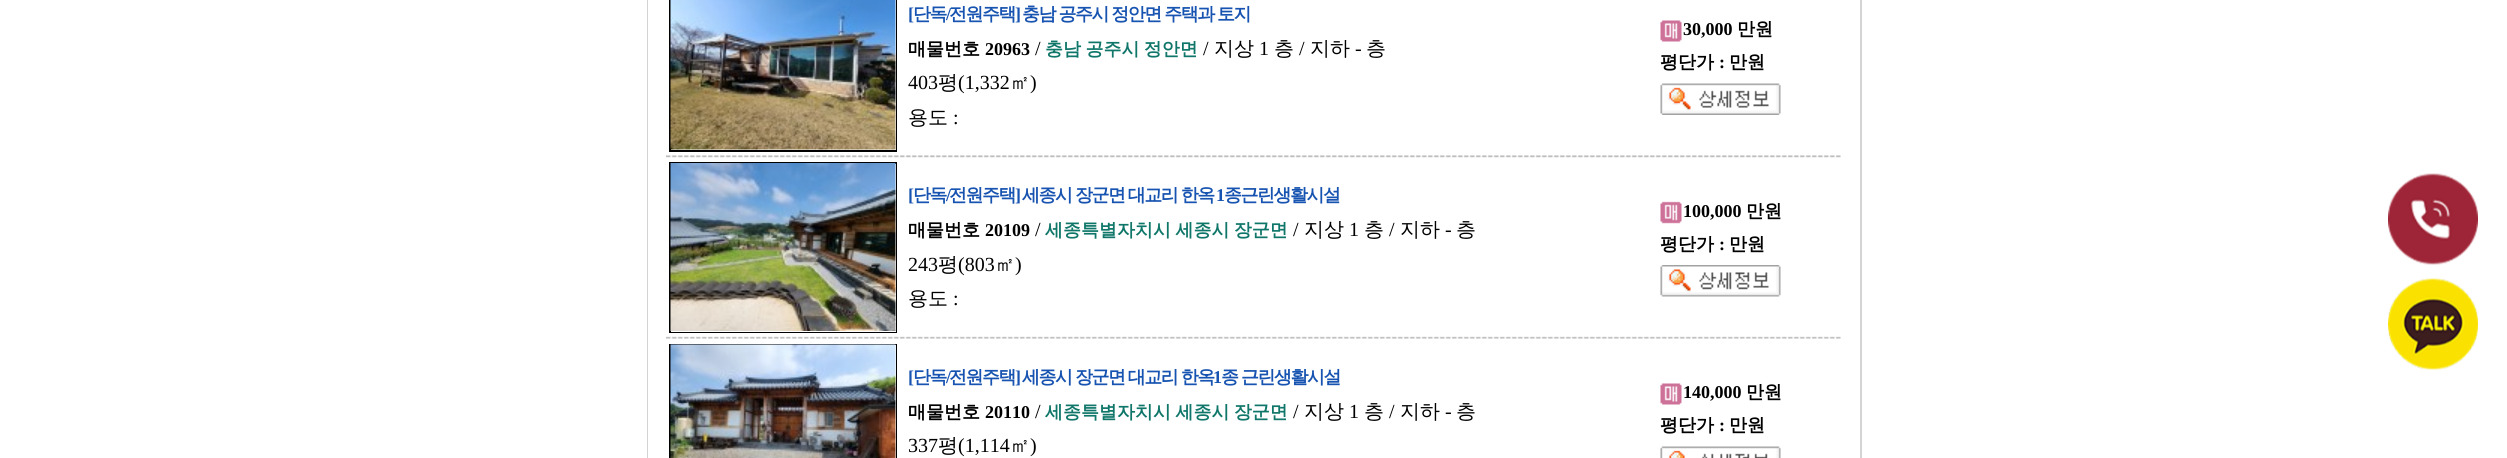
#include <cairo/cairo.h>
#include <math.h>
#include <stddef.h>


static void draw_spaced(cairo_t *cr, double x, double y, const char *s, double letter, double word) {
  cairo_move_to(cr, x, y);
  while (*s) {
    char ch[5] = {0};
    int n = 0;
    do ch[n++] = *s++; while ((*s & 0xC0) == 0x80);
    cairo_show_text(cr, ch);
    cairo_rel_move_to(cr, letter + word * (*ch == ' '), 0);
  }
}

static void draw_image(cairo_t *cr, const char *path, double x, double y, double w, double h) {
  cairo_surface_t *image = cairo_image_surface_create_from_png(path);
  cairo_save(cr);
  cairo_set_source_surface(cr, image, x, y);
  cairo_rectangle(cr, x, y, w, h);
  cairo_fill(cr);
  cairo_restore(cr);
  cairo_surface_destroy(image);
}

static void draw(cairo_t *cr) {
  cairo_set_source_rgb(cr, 1, 1, 1);
  cairo_paint(cr);
  cairo_set_source_rgb(cr, 213 / 255.0, 212 / 255.0, 213 / 255.0);
  cairo_rectangle(cr, 647, 0, 1215, 458);
  cairo_fill(cr);
  cairo_set_source_rgb(cr, 1, 1, 1);
  cairo_rectangle(cr, 648, 0, 1212, 458);
  cairo_fill(cr);
  cairo_set_source_rgb(cr, 0, 0, 0);
  cairo_rectangle(cr, 669, 0, 228, 152);
  cairo_fill(cr);
  cairo_set_source_rgb(cr, 1, 1, 1);
  cairo_rectangle(cr, 671, 0, 225, 150);
  cairo_fill(cr);
  draw_image(cr, "images/1.png", 670, 0, 226, 150);
  draw_image(cr, "images/2.png", 1660, 20, 22, 22);
  draw_image(cr, "images/3.png", 1660, 83, 121, 32);
  draw_image(cr, "images/4.png", 666, 155, 1175, 3);
  cairo_set_source_rgb(cr, 0, 0, 0);
  cairo_rectangle(cr, 669, 162, 228, 171);
  cairo_fill(cr);
  cairo_set_source_rgb(cr, 1, 1, 1);
  cairo_rectangle(cr, 671, 164, 225, 168);
  cairo_fill(cr);
  draw_image(cr, "images/5.png", 670, 163, 226, 168);
  draw_image(cr, "images/6.png", 1660, 201, 22, 23);
  draw_image(cr, "images/7.png", 1660, 265, 121, 32);
  draw_image(cr, "images/8.png", 666, 336, 1175, 3);
  cairo_set_source_rgb(cr, 0, 0, 0);
  cairo_rectangle(cr, 669, 344, 228, 114);
  cairo_fill(cr);
  cairo_set_source_rgb(cr, 1, 1, 1);
  cairo_rectangle(cr, 895, 345, 1, 113);
  cairo_fill(cr);
  draw_image(cr, "images/9.png", 670, 344, 226, 114);
  draw_image(cr, "images/2.png", 1660, 383, 22, 22);
  draw_image(cr, "images/10.png", 1660, 446, 121, 12);
  draw_image(cr, "images/11.png", 2388, 173, 90, 92);
  draw_image(cr, "images/12.png", 2388, 278, 90, 92);
  cairo_select_font_face(cr, "Liberation Serif", CAIRO_FONT_SLANT_NORMAL, CAIRO_FONT_WEIGHT_BOLD);
  cairo_set_font_size(cr, 18);
  cairo_set_source_rgb(cr, 23 / 255.0, 83 / 255.0, 176 / 255.0);
  draw_spaced(cr, 908, 20, "[", -1.5, 0);
  cairo_select_font_face(cr, "WenQuanYi Zen Hei", CAIRO_FONT_SLANT_NORMAL, CAIRO_FONT_WEIGHT_BOLD);
  draw_spaced(cr, 913, 20, "단독", -1.5, 0);
  cairo_select_font_face(cr, "Liberation Serif", CAIRO_FONT_SLANT_NORMAL, CAIRO_FONT_WEIGHT_BOLD);
  draw_spaced(cr, 946, 20, "/", -1.5, 0);
  cairo_select_font_face(cr, "WenQuanYi Zen Hei", CAIRO_FONT_SLANT_NORMAL, CAIRO_FONT_WEIGHT_BOLD);
  draw_spaced(cr, 949, 20, "전원주택", -1.5, 0);
  cairo_select_font_face(cr, "Liberation Serif", CAIRO_FONT_SLANT_NORMAL, CAIRO_FONT_WEIGHT_BOLD);
  draw_spaced(cr, 1015, 20, "]", -1.5, 0);
  cairo_select_font_face(cr, "WenQuanYi Zen Hei", CAIRO_FONT_SLANT_NORMAL, CAIRO_FONT_WEIGHT_BOLD);
  draw_spaced(cr, 1022, 20, "충남 공주시 정안면 주택과 토지", -1.5, -0.5);
  cairo_set_source_rgb(cr, 0, 0, 0);
  cairo_move_to(cr, 908, 55);
  cairo_show_text(cr, "매물번호");
  cairo_select_font_face(cr, "Liberation Serif", CAIRO_FONT_SLANT_NORMAL, CAIRO_FONT_WEIGHT_BOLD);
  cairo_move_to(cr, 985, 55);
  cairo_show_text(cr, "20963");
  cairo_select_font_face(cr, "Liberation Serif", CAIRO_FONT_SLANT_NORMAL, CAIRO_FONT_WEIGHT_NORMAL);
  cairo_set_font_size(cr, 20);
  cairo_move_to(cr, 1035, 55);
  cairo_show_text(cr, "/");
  cairo_select_font_face(cr, "WenQuanYi Zen Hei", CAIRO_FONT_SLANT_NORMAL, CAIRO_FONT_WEIGHT_BOLD);
  cairo_set_font_size(cr, 18);
  cairo_set_source_rgb(cr, 15 / 255.0, 118 / 255.0, 105 / 255.0);
  draw_spaced(cr, 1045, 55, "충남 공주시 정안면", 0, -1);
  cairo_select_font_face(cr, "Liberation Serif", CAIRO_FONT_SLANT_NORMAL, CAIRO_FONT_WEIGHT_NORMAL);
  cairo_set_font_size(cr, 20);
  cairo_set_source_rgb(cr, 0, 0, 0);
  cairo_move_to(cr, 1203, 55);
  cairo_show_text(cr, "/");
  cairo_select_font_face(cr, "WenQuanYi Zen Hei Medium", CAIRO_FONT_SLANT_NORMAL, CAIRO_FONT_WEIGHT_NORMAL);
  cairo_move_to(cr, 1214, 55);
  cairo_show_text(cr, "지상");
  cairo_select_font_face(cr, "Liberation Serif", CAIRO_FONT_SLANT_NORMAL, CAIRO_FONT_WEIGHT_NORMAL);
  cairo_move_to(cr, 1259, 55);
  cairo_show_text(cr, "1");
  cairo_select_font_face(cr, "WenQuanYi Zen Hei Medium", CAIRO_FONT_SLANT_NORMAL, CAIRO_FONT_WEIGHT_NORMAL);
  cairo_move_to(cr, 1274, 55);
  cairo_show_text(cr, "층");
  cairo_select_font_face(cr, "Liberation Serif", CAIRO_FONT_SLANT_NORMAL, CAIRO_FONT_WEIGHT_NORMAL);
  cairo_move_to(cr, 1299, 55);
  cairo_show_text(cr, "/");
  cairo_select_font_face(cr, "WenQuanYi Zen Hei Medium", CAIRO_FONT_SLANT_NORMAL, CAIRO_FONT_WEIGHT_NORMAL);
  cairo_move_to(cr, 1310, 55);
  cairo_show_text(cr, "지하");
  cairo_select_font_face(cr, "Liberation Serif", CAIRO_FONT_SLANT_NORMAL, CAIRO_FONT_WEIGHT_NORMAL);
  cairo_move_to(cr, 1355, 55);
  cairo_show_text(cr, "-");
  cairo_select_font_face(cr, "WenQuanYi Zen Hei Medium", CAIRO_FONT_SLANT_NORMAL, CAIRO_FONT_WEIGHT_NORMAL);
  cairo_move_to(cr, 1366, 55);
  cairo_show_text(cr, "층");
  cairo_select_font_face(cr, "Liberation Serif", CAIRO_FONT_SLANT_NORMAL, CAIRO_FONT_WEIGHT_NORMAL);
  cairo_move_to(cr, 908, 89);
  cairo_show_text(cr, "403");
  cairo_select_font_face(cr, "WenQuanYi Zen Hei Medium", CAIRO_FONT_SLANT_NORMAL, CAIRO_FONT_WEIGHT_NORMAL);
  cairo_move_to(cr, 938, 89);
  cairo_show_text(cr, "평");
  cairo_select_font_face(cr, "Liberation Serif", CAIRO_FONT_SLANT_NORMAL, CAIRO_FONT_WEIGHT_NORMAL);
  cairo_move_to(cr, 958, 89);
  cairo_show_text(cr, "(1,332");
  cairo_select_font_face(cr, "WenQuanYi Zen Hei Medium", CAIRO_FONT_SLANT_NORMAL, CAIRO_FONT_WEIGHT_NORMAL);
  cairo_move_to(cr, 1010, 89);
  cairo_show_text(cr, "㎡");
  cairo_select_font_face(cr, "Liberation Serif", CAIRO_FONT_SLANT_NORMAL, CAIRO_FONT_WEIGHT_NORMAL);
  cairo_move_to(cr, 1030, 89);
  cairo_show_text(cr, ")");
  cairo_select_font_face(cr, "WenQuanYi Zen Hei Medium", CAIRO_FONT_SLANT_NORMAL, CAIRO_FONT_WEIGHT_NORMAL);
  cairo_move_to(cr, 908, 124);
  cairo_show_text(cr, "용도");
  cairo_select_font_face(cr, "Liberation Serif", CAIRO_FONT_SLANT_NORMAL, CAIRO_FONT_WEIGHT_NORMAL);
  cairo_move_to(cr, 953, 124);
  cairo_show_text(cr, ":");
  cairo_select_font_face(cr, "Liberation Serif", CAIRO_FONT_SLANT_NORMAL, CAIRO_FONT_WEIGHT_BOLD);
  cairo_set_font_size(cr, 18);
  cairo_move_to(cr, 1683, 35);
  cairo_show_text(cr, "30,000");
  cairo_select_font_face(cr, "WenQuanYi Zen Hei", CAIRO_FONT_SLANT_NORMAL, CAIRO_FONT_WEIGHT_BOLD);
  cairo_move_to(cr, 1737, 35);
  cairo_show_text(cr, "만원");
  cairo_move_to(cr, 1660, 68);
  cairo_show_text(cr, "평단가");
  cairo_select_font_face(cr, "Liberation Serif", CAIRO_FONT_SLANT_NORMAL, CAIRO_FONT_WEIGHT_BOLD);
  cairo_move_to(cr, 1719, 68);
  cairo_show_text(cr, ":");
  cairo_select_font_face(cr, "WenQuanYi Zen Hei", CAIRO_FONT_SLANT_NORMAL, CAIRO_FONT_WEIGHT_BOLD);
  cairo_move_to(cr, 1729, 68);
  cairo_show_text(cr, "만원");
  cairo_select_font_face(cr, "Liberation Serif", CAIRO_FONT_SLANT_NORMAL, CAIRO_FONT_WEIGHT_BOLD);
  cairo_set_source_rgb(cr, 23 / 255.0, 83 / 255.0, 176 / 255.0);
  draw_spaced(cr, 908, 201, "[", -1.5, 0);
  cairo_select_font_face(cr, "WenQuanYi Zen Hei", CAIRO_FONT_SLANT_NORMAL, CAIRO_FONT_WEIGHT_BOLD);
  draw_spaced(cr, 913, 201, "단독", -1.5, 0);
  cairo_select_font_face(cr, "Liberation Serif", CAIRO_FONT_SLANT_NORMAL, CAIRO_FONT_WEIGHT_BOLD);
  draw_spaced(cr, 946, 201, "/", -1.5, 0);
  cairo_select_font_face(cr, "WenQuanYi Zen Hei", CAIRO_FONT_SLANT_NORMAL, CAIRO_FONT_WEIGHT_BOLD);
  draw_spaced(cr, 949, 201, "전원주택", -1.5, 0);
  cairo_select_font_face(cr, "Liberation Serif", CAIRO_FONT_SLANT_NORMAL, CAIRO_FONT_WEIGHT_BOLD);
  draw_spaced(cr, 1015, 201, "]", -1.5, 0);
  cairo_select_font_face(cr, "WenQuanYi Zen Hei", CAIRO_FONT_SLANT_NORMAL, CAIRO_FONT_WEIGHT_BOLD);
  draw_spaced(cr, 1022, 201, "세종시 장군면 대교리 한옥", -1.5, -0.5);
  cairo_select_font_face(cr, "Liberation Serif", CAIRO_FONT_SLANT_NORMAL, CAIRO_FONT_WEIGHT_BOLD);
  draw_spaced(cr, 1216, 201, "1", -1.5, 0);
  cairo_select_font_face(cr, "WenQuanYi Zen Hei", CAIRO_FONT_SLANT_NORMAL, CAIRO_FONT_WEIGHT_BOLD);
  draw_spaced(cr, 1224, 201, "종근린생활시설", -1.5, 0);
  cairo_set_source_rgb(cr, 0, 0, 0);
  cairo_move_to(cr, 908, 236);
  cairo_show_text(cr, "매물번호");
  cairo_select_font_face(cr, "Liberation Serif", CAIRO_FONT_SLANT_NORMAL, CAIRO_FONT_WEIGHT_BOLD);
  cairo_move_to(cr, 985, 236);
  cairo_show_text(cr, "20109");
  cairo_select_font_face(cr, "Liberation Serif", CAIRO_FONT_SLANT_NORMAL, CAIRO_FONT_WEIGHT_NORMAL);
  cairo_set_font_size(cr, 20);
  cairo_move_to(cr, 1035, 236);
  cairo_show_text(cr, "/");
  cairo_select_font_face(cr, "WenQuanYi Zen Hei", CAIRO_FONT_SLANT_NORMAL, CAIRO_FONT_WEIGHT_BOLD);
  cairo_set_font_size(cr, 18);
  cairo_set_source_rgb(cr, 15 / 255.0, 118 / 255.0, 105 / 255.0);
  draw_spaced(cr, 1045, 236, "세종특별자치시 세종시 장군면", 0, -1);
  cairo_select_font_face(cr, "Liberation Serif", CAIRO_FONT_SLANT_NORMAL, CAIRO_FONT_WEIGHT_NORMAL);
  cairo_set_font_size(cr, 20);
  cairo_set_source_rgb(cr, 0, 0, 0);
  cairo_move_to(cr, 1293, 236);
  cairo_show_text(cr, "/");
  cairo_select_font_face(cr, "WenQuanYi Zen Hei Medium", CAIRO_FONT_SLANT_NORMAL, CAIRO_FONT_WEIGHT_NORMAL);
  cairo_move_to(cr, 1304, 236);
  cairo_show_text(cr, "지상");
  cairo_select_font_face(cr, "Liberation Serif", CAIRO_FONT_SLANT_NORMAL, CAIRO_FONT_WEIGHT_NORMAL);
  cairo_move_to(cr, 1349, 236);
  cairo_show_text(cr, "1");
  cairo_select_font_face(cr, "WenQuanYi Zen Hei Medium", CAIRO_FONT_SLANT_NORMAL, CAIRO_FONT_WEIGHT_NORMAL);
  cairo_move_to(cr, 1364, 236);
  cairo_show_text(cr, "층");
  cairo_select_font_face(cr, "Liberation Serif", CAIRO_FONT_SLANT_NORMAL, CAIRO_FONT_WEIGHT_NORMAL);
  cairo_move_to(cr, 1389, 236);
  cairo_show_text(cr, "/");
  cairo_select_font_face(cr, "WenQuanYi Zen Hei Medium", CAIRO_FONT_SLANT_NORMAL, CAIRO_FONT_WEIGHT_NORMAL);
  cairo_move_to(cr, 1400, 236);
  cairo_show_text(cr, "지하");
  cairo_select_font_face(cr, "Liberation Serif", CAIRO_FONT_SLANT_NORMAL, CAIRO_FONT_WEIGHT_NORMAL);
  cairo_move_to(cr, 1445, 236);
  cairo_show_text(cr, "-");
  cairo_select_font_face(cr, "WenQuanYi Zen Hei Medium", CAIRO_FONT_SLANT_NORMAL, CAIRO_FONT_WEIGHT_NORMAL);
  cairo_move_to(cr, 1456, 236);
  cairo_show_text(cr, "층");
  cairo_select_font_face(cr, "Liberation Serif", CAIRO_FONT_SLANT_NORMAL, CAIRO_FONT_WEIGHT_NORMAL);
  cairo_move_to(cr, 908, 271);
  cairo_show_text(cr, "243");
  cairo_select_font_face(cr, "WenQuanYi Zen Hei Medium", CAIRO_FONT_SLANT_NORMAL, CAIRO_FONT_WEIGHT_NORMAL);
  cairo_move_to(cr, 938, 271);
  cairo_show_text(cr, "평");
  cairo_select_font_face(cr, "Liberation Serif", CAIRO_FONT_SLANT_NORMAL, CAIRO_FONT_WEIGHT_NORMAL);
  cairo_move_to(cr, 958, 271);
  cairo_show_text(cr, "(803");
  cairo_select_font_face(cr, "WenQuanYi Zen Hei Medium", CAIRO_FONT_SLANT_NORMAL, CAIRO_FONT_WEIGHT_NORMAL);
  cairo_move_to(cr, 995, 271);
  cairo_show_text(cr, "㎡");
  cairo_select_font_face(cr, "Liberation Serif", CAIRO_FONT_SLANT_NORMAL, CAIRO_FONT_WEIGHT_NORMAL);
  cairo_move_to(cr, 1015, 271);
  cairo_show_text(cr, ")");
  cairo_select_font_face(cr, "WenQuanYi Zen Hei Medium", CAIRO_FONT_SLANT_NORMAL, CAIRO_FONT_WEIGHT_NORMAL);
  cairo_move_to(cr, 908, 305);
  cairo_show_text(cr, "용도");
  cairo_select_font_face(cr, "Liberation Serif", CAIRO_FONT_SLANT_NORMAL, CAIRO_FONT_WEIGHT_NORMAL);
  cairo_move_to(cr, 953, 305);
  cairo_show_text(cr, ":");
  cairo_select_font_face(cr, "Liberation Serif", CAIRO_FONT_SLANT_NORMAL, CAIRO_FONT_WEIGHT_BOLD);
  cairo_set_font_size(cr, 18);
  cairo_move_to(cr, 1683, 217);
  cairo_show_text(cr, "100,000");
  cairo_select_font_face(cr, "WenQuanYi Zen Hei", CAIRO_FONT_SLANT_NORMAL, CAIRO_FONT_WEIGHT_BOLD);
  cairo_move_to(cr, 1746, 217);
  cairo_show_text(cr, "만원");
  cairo_move_to(cr, 1660, 250);
  cairo_show_text(cr, "평단가");
  cairo_select_font_face(cr, "Liberation Serif", CAIRO_FONT_SLANT_NORMAL, CAIRO_FONT_WEIGHT_BOLD);
  cairo_move_to(cr, 1719, 250);
  cairo_show_text(cr, ":");
  cairo_select_font_face(cr, "WenQuanYi Zen Hei", CAIRO_FONT_SLANT_NORMAL, CAIRO_FONT_WEIGHT_BOLD);
  cairo_move_to(cr, 1729, 250);
  cairo_show_text(cr, "만원");
  cairo_select_font_face(cr, "Liberation Serif", CAIRO_FONT_SLANT_NORMAL, CAIRO_FONT_WEIGHT_BOLD);
  cairo_set_source_rgb(cr, 23 / 255.0, 83 / 255.0, 176 / 255.0);
  draw_spaced(cr, 908, 383, "[", -1.5, 0);
  cairo_select_font_face(cr, "WenQuanYi Zen Hei", CAIRO_FONT_SLANT_NORMAL, CAIRO_FONT_WEIGHT_BOLD);
  draw_spaced(cr, 913, 383, "단독", -1.5, 0);
  cairo_select_font_face(cr, "Liberation Serif", CAIRO_FONT_SLANT_NORMAL, CAIRO_FONT_WEIGHT_BOLD);
  draw_spaced(cr, 946, 383, "/", -1.5, 0);
  cairo_select_font_face(cr, "WenQuanYi Zen Hei", CAIRO_FONT_SLANT_NORMAL, CAIRO_FONT_WEIGHT_BOLD);
  draw_spaced(cr, 949, 383, "전원주택", -1.5, 0);
  cairo_select_font_face(cr, "Liberation Serif", CAIRO_FONT_SLANT_NORMAL, CAIRO_FONT_WEIGHT_BOLD);
  draw_spaced(cr, 1015, 383, "]", -1.5, 0);
  cairo_select_font_face(cr, "WenQuanYi Zen Hei", CAIRO_FONT_SLANT_NORMAL, CAIRO_FONT_WEIGHT_BOLD);
  draw_spaced(cr, 1022, 383, "세종시 장군면 대교리 한옥", -1.5, -0.5);
  cairo_select_font_face(cr, "Liberation Serif", CAIRO_FONT_SLANT_NORMAL, CAIRO_FONT_WEIGHT_BOLD);
  draw_spaced(cr, 1213, 383, "1", -1.5, 0);
  cairo_select_font_face(cr, "WenQuanYi Zen Hei", CAIRO_FONT_SLANT_NORMAL, CAIRO_FONT_WEIGHT_BOLD);
  draw_spaced(cr, 1221, 383, "종 근린생활시설", -1.5, -0.5);
  cairo_set_source_rgb(cr, 0, 0, 0);
  cairo_move_to(cr, 908, 418);
  cairo_show_text(cr, "매물번호");
  cairo_select_font_face(cr, "Liberation Serif", CAIRO_FONT_SLANT_NORMAL, CAIRO_FONT_WEIGHT_BOLD);
  cairo_move_to(cr, 985, 418);
  cairo_show_text(cr, "20110");
  cairo_select_font_face(cr, "Liberation Serif", CAIRO_FONT_SLANT_NORMAL, CAIRO_FONT_WEIGHT_NORMAL);
  cairo_set_font_size(cr, 20);
  cairo_move_to(cr, 1035, 418);
  cairo_show_text(cr, "/");
  cairo_select_font_face(cr, "WenQuanYi Zen Hei", CAIRO_FONT_SLANT_NORMAL, CAIRO_FONT_WEIGHT_BOLD);
  cairo_set_font_size(cr, 18);
  cairo_set_source_rgb(cr, 15 / 255.0, 118 / 255.0, 105 / 255.0);
  draw_spaced(cr, 1045, 418, "세종특별자치시 세종시 장군면", 0, -1);
  cairo_select_font_face(cr, "Liberation Serif", CAIRO_FONT_SLANT_NORMAL, CAIRO_FONT_WEIGHT_NORMAL);
  cairo_set_font_size(cr, 20);
  cairo_set_source_rgb(cr, 0, 0, 0);
  cairo_move_to(cr, 1293, 418);
  cairo_show_text(cr, "/");
  cairo_select_font_face(cr, "WenQuanYi Zen Hei Medium", CAIRO_FONT_SLANT_NORMAL, CAIRO_FONT_WEIGHT_NORMAL);
  cairo_move_to(cr, 1304, 418);
  cairo_show_text(cr, "지상");
  cairo_select_font_face(cr, "Liberation Serif", CAIRO_FONT_SLANT_NORMAL, CAIRO_FONT_WEIGHT_NORMAL);
  cairo_move_to(cr, 1349, 418);
  cairo_show_text(cr, "1");
  cairo_select_font_face(cr, "WenQuanYi Zen Hei Medium", CAIRO_FONT_SLANT_NORMAL, CAIRO_FONT_WEIGHT_NORMAL);
  cairo_move_to(cr, 1364, 418);
  cairo_show_text(cr, "층");
  cairo_select_font_face(cr, "Liberation Serif", CAIRO_FONT_SLANT_NORMAL, CAIRO_FONT_WEIGHT_NORMAL);
  cairo_move_to(cr, 1389, 418);
  cairo_show_text(cr, "/");
  cairo_select_font_face(cr, "WenQuanYi Zen Hei Medium", CAIRO_FONT_SLANT_NORMAL, CAIRO_FONT_WEIGHT_NORMAL);
  cairo_move_to(cr, 1400, 418);
  cairo_show_text(cr, "지하");
  cairo_select_font_face(cr, "Liberation Serif", CAIRO_FONT_SLANT_NORMAL, CAIRO_FONT_WEIGHT_NORMAL);
  cairo_move_to(cr, 1445, 418);
  cairo_show_text(cr, "-");
  cairo_select_font_face(cr, "WenQuanYi Zen Hei Medium", CAIRO_FONT_SLANT_NORMAL, CAIRO_FONT_WEIGHT_NORMAL);
  cairo_move_to(cr, 1456, 418);
  cairo_show_text(cr, "층");
  cairo_select_font_face(cr, "Liberation Serif", CAIRO_FONT_SLANT_NORMAL, CAIRO_FONT_WEIGHT_NORMAL);
  cairo_move_to(cr, 908, 452);
  cairo_show_text(cr, "337");
  cairo_select_font_face(cr, "WenQuanYi Zen Hei Medium", CAIRO_FONT_SLANT_NORMAL, CAIRO_FONT_WEIGHT_NORMAL);
  cairo_move_to(cr, 938, 452);
  cairo_show_text(cr, "평");
  cairo_select_font_face(cr, "Liberation Serif", CAIRO_FONT_SLANT_NORMAL, CAIRO_FONT_WEIGHT_NORMAL);
  cairo_move_to(cr, 958, 452);
  cairo_show_text(cr, "(1,114");
  cairo_select_font_face(cr, "WenQuanYi Zen Hei Medium", CAIRO_FONT_SLANT_NORMAL, CAIRO_FONT_WEIGHT_NORMAL);
  cairo_move_to(cr, 1010, 452);
  cairo_show_text(cr, "㎡");
  cairo_select_font_face(cr, "Liberation Serif", CAIRO_FONT_SLANT_NORMAL, CAIRO_FONT_WEIGHT_NORMAL);
  cairo_move_to(cr, 1030, 452);
  cairo_show_text(cr, ")");
  cairo_select_font_face(cr, "Liberation Serif", CAIRO_FONT_SLANT_NORMAL, CAIRO_FONT_WEIGHT_BOLD);
  cairo_set_font_size(cr, 18);
  cairo_move_to(cr, 1683, 398);
  cairo_show_text(cr, "140,000");
  cairo_select_font_face(cr, "WenQuanYi Zen Hei", CAIRO_FONT_SLANT_NORMAL, CAIRO_FONT_WEIGHT_BOLD);
  cairo_move_to(cr, 1746, 398);
  cairo_show_text(cr, "만원");
  cairo_move_to(cr, 1660, 431);
  cairo_show_text(cr, "평단가");
  cairo_select_font_face(cr, "Liberation Serif", CAIRO_FONT_SLANT_NORMAL, CAIRO_FONT_WEIGHT_BOLD);
  cairo_move_to(cr, 1719, 431);
  cairo_show_text(cr, ":");
  cairo_select_font_face(cr, "WenQuanYi Zen Hei", CAIRO_FONT_SLANT_NORMAL, CAIRO_FONT_WEIGHT_BOLD);
  cairo_move_to(cr, 1729, 431);
  cairo_show_text(cr, "만원");
}

int main(void) {
  cairo_surface_t *surface = cairo_image_surface_create(CAIRO_FORMAT_RGB24, 2507, 458);
  cairo_t *cr = cairo_create(surface);
  cairo_font_options_t *options = cairo_font_options_create();
  cairo_font_options_set_hint_metrics(options, CAIRO_HINT_METRICS_OFF);
  cairo_font_options_set_hint_style(options, CAIRO_HINT_STYLE_NONE);
  cairo_set_font_options(cr, options);
  cairo_set_miter_limit(cr, 4);
  draw(cr);
  cairo_surface_write_to_png(surface, "out.png");
  cairo_font_options_destroy(options);
  cairo_destroy(cr);
  cairo_surface_destroy(surface);
  return 0;
}
